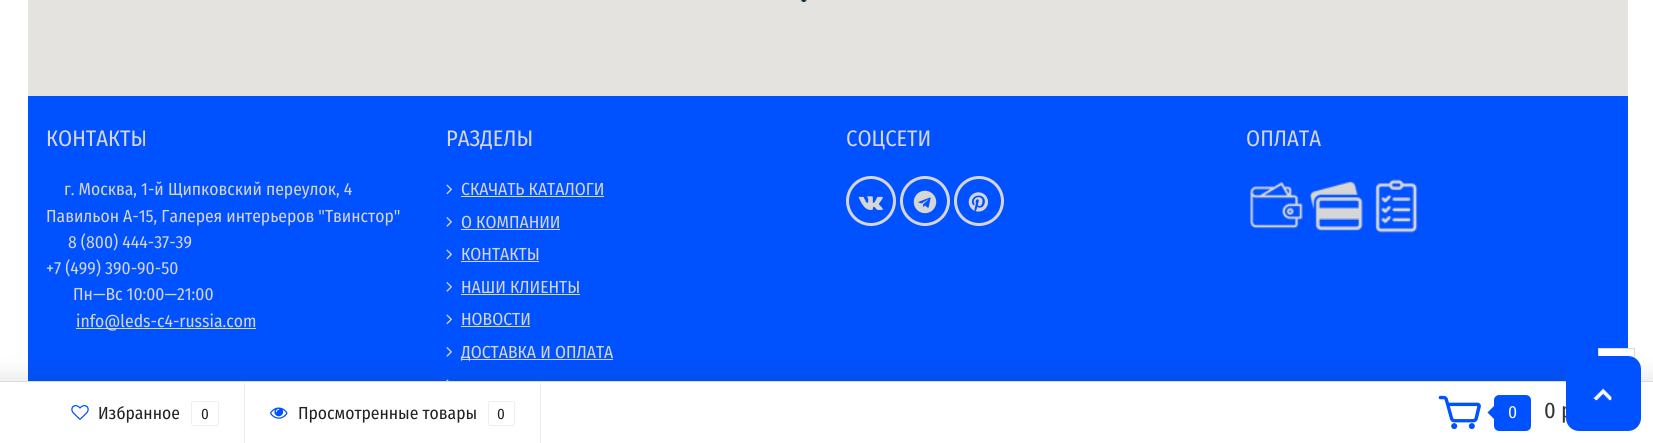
#include <cairo/cairo.h>
#include <math.h>
#include <stddef.h>


static void rounded_rect(cairo_t *cr, double x, double y, double w, double h, double r) {
  cairo_new_sub_path(cr);
  cairo_arc(cr, x + w - r, y + h - r, r, 0, M_PI / 2);
  cairo_arc(cr, x + r, y + h - r, r, M_PI / 2, M_PI);
  cairo_arc(cr, x + r, y + r, r, M_PI, 1.5 * M_PI);
  cairo_arc(cr, x + w - r, y + r, r, 1.5 * M_PI, 2 * M_PI);
  cairo_close_path(cr);
}

static void draw_shadow(cairo_t *cr, double x, double y, double w, double h, double r, double blur, double alpha) {
  cairo_push_group_with_content(cr, CAIRO_CONTENT_ALPHA);
  cairo_set_operator(cr, CAIRO_OPERATOR_SOURCE);
  for (int i = 15; i >= -15 && fmin(w, h) + blur * i / 3 > 0; i -= 2) {
    double e = blur * i / 6;
    cairo_set_source_rgba(cr, 0, 0, 0, alpha * erfc((i - 1) / 8.5) / 2);
    rounded_rect(cr, x - e, y - e, w + 2 * e, h + 2 * e, fmax(0, fmin(r + e + blur * .6, fmin(w, h) / 2 + e)));
    cairo_fill(cr);
  }
  cairo_pattern_t *soft = cairo_pop_group(cr);
  cairo_mask(cr, soft);
  cairo_pattern_destroy(soft);
}

static void draw_image(cairo_t *cr, const char *path, double x, double y, double w, double h) {
  cairo_surface_t *image = cairo_image_surface_create_from_png(path);
  cairo_save(cr);
  cairo_set_source_surface(cr, image, x, y);
  cairo_rectangle(cr, x, y, w, h);
  cairo_fill(cr);
  cairo_restore(cr);
  cairo_surface_destroy(image);
}

static void draw(cairo_t *cr) {
  cairo_set_source_rgb(cr, 1, 1, 1);
  cairo_paint(cr);
  cairo_set_source_rgb(cr, 0, 81 / 255.0, 1);
  cairo_rectangle(cr, 28, 96, 1600, 285);
  cairo_fill(cr);
  cairo_set_source_rgb(cr, 229 / 255.0, 227 / 255.0, 223 / 255.0);
  cairo_rectangle(cr, 28, 0, 1600, 96);
  cairo_fill(cr);
  draw_image(cr, "images/1.png", 800, 0, 7, 2);
  cairo_set_source_rgb(cr, 214 / 255.0, 214 / 255.0, 214 / 255.0);
  cairo_rectangle(cr, 76, 328, 180, 1);
  cairo_fill(cr);
  draw_image(cr, "images/3.png", 446, 184, 6, 11);
  cairo_rectangle(cr, 461, 196, 143, 1);
  cairo_fill(cr);
  draw_image(cr, "images/4.png", 446, 217, 6, 10);
  cairo_rectangle(cr, 461, 229, 99, 1);
  cairo_fill(cr);
  draw_image(cr, "images/3.png", 446, 249, 6, 11);
  cairo_rectangle(cr, 461, 261, 78, 1);
  cairo_fill(cr);
  draw_image(cr, "images/4.png", 446, 282, 6, 10);
  cairo_rectangle(cr, 461, 294, 119, 1);
  cairo_fill(cr);
  draw_image(cr, "images/3.png", 446, 314, 6, 11);
  cairo_rectangle(cr, 461, 326, 69, 1);
  cairo_fill(cr);
  draw_image(cr, "images/4.png", 446, 347, 6, 10);
  cairo_rectangle(cr, 461, 359, 152, 1);
  cairo_fill(cr);
  draw_image(cr, "images/5.png", 446, 379, 3, 2);
  cairo_arc(cr, 871, 201, 23.5, 0, 2 * M_PI);
  cairo_set_line_width(cr, 3);
  cairo_stroke(cr);
  draw_image(cr, "images/6.png", 858, 196, 25, 14);
  cairo_arc(cr, 925, 201, 23.5, 0, 2 * M_PI);
  cairo_stroke(cr);
  draw_image(cr, "images/7.png", 913, 190, 24, 24);
  cairo_arc(cr, 979, 201, 23.5, 0, 2 * M_PI);
  cairo_stroke(cr);
  draw_image(cr, "images/8.png", 968, 192, 20, 20);
  draw_image(cr, "images/9.png", 1249, 182, 54, 47);
  draw_image(cr, "images/10.png", 1309, 181, 54, 50);
  draw_image(cr, "images/11.png", 1375, 179, 43, 54);
  cairo_set_source_rgb(cr, 1, 1, 1);
  cairo_rectangle(cr, 1599, 349, 29, 9);
  cairo_fill(cr);
  cairo_rectangle(cr, 1598.5, 348.5, 36, 34);
  cairo_set_source_rgb(cr, 219 / 255.0, 219 / 255.0, 219 / 255.0);
  cairo_set_line_width(cr, 1);
  cairo_stroke(cr);
  cairo_set_source_rgb(cr, 50 / 255.0, 50 / 255.0, 50 / 255.0);
  draw_shadow(cr, -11, 379, 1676, 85, 0, 12.5, 0.15);
  cairo_set_source_rgb(cr, 1, 1, 1);
  cairo_rectangle(cr, 0, 382, 1653, 61);
  cairo_fill(cr);
  cairo_set_source_rgb(cr, 219 / 255.0, 219 / 255.0, 219 / 255.0);
  cairo_rectangle(cr, 0, 381, 1653, 1);
  cairo_fill(cr);
  cairo_set_source_rgb(cr, 237 / 255.0, 237 / 255.0, 237 / 255.0);
  cairo_rectangle(cr, 244, 383, 1, 60);
  cairo_fill(cr);
  draw_image(cr, "images/12.png", 71, 405, 18, 15);
  rounded_rect(cr, 191.5, 401.5, 27, 24, 2);
  cairo_set_source_rgb(cr, 238 / 255.0, 238 / 255.0, 238 / 255.0);
  cairo_stroke(cr);
  cairo_set_source_rgb(cr, 237 / 255.0, 237 / 255.0, 237 / 255.0);
  cairo_rectangle(cr, 540, 383, 1, 60);
  cairo_fill(cr);
  draw_image(cr, "images/13.png", 270, 407, 18, 12);
  rounded_rect(cr, 488.5, 401.5, 26, 24, 2);
  cairo_set_source_rgb(cr, 238 / 255.0, 238 / 255.0, 238 / 255.0);
  cairo_stroke(cr);
  draw_image(cr, "images/14.png", 1438, 395, 43, 35);
  cairo_set_source_rgb(cr, 0, 81 / 255.0, 1);
  rounded_rect(cr, 1496.5, 397.5, 32, 31, 2.5);
  cairo_fill_preserve(cr);
  cairo_set_line_width(cr, 5);
  cairo_stroke(cr);
  cairo_new_path(cr);
  cairo_move_to(cr, 1499, 401);
  cairo_line_to(cr, 1499, 424);
  cairo_line_to(cr, 1487.5, 412.5);
  cairo_close_path(cr);
  cairo_fill(cr);
  cairo_select_font_face(cr, "Fira Sans Condensed", CAIRO_FONT_SLANT_NORMAL, CAIRO_FONT_WEIGHT_NORMAL);
  cairo_set_font_size(cr, 22.5);
  cairo_set_source_rgb(cr, 214 / 255.0, 214 / 255.0, 214 / 255.0);
  cairo_move_to(cr, 46, 146);
  cairo_show_text(cr, "КОНТАКТЫ");
  cairo_set_font_size(cr, 17.5);
  cairo_move_to(cr, 64, 195);
  cairo_show_text(cr, "г. Москва, 1-й Щипковский переулок, 4");
  cairo_move_to(cr, 46, 222);
  cairo_show_text(cr, "Павильон А-15, Галерея интерьеров \"Твинстор\"");
  cairo_move_to(cr, 68, 248);
  cairo_show_text(cr, "8 (800) 444-37-39");
  cairo_move_to(cr, 46, 274);
  cairo_show_text(cr, "+7 (499) 390-90-50");
  cairo_move_to(cr, 73, 300);
  cairo_show_text(cr, "Пн—Вс 10:00—21:00");
  cairo_move_to(cr, 76, 327);
  cairo_show_text(cr, "info@leds-c4-russia.com");
  cairo_set_font_size(cr, 22.5);
  cairo_move_to(cr, 446, 146);
  cairo_show_text(cr, "РАЗДЕЛЫ");
  cairo_set_font_size(cr, 17.5);
  cairo_move_to(cr, 461, 195);
  cairo_show_text(cr, "СКАЧАТЬ КАТАЛОГИ");
  cairo_move_to(cr, 461, 228);
  cairo_show_text(cr, "О КОМПАНИИ");
  cairo_move_to(cr, 461, 260);
  cairo_show_text(cr, "КОНТАКТЫ");
  cairo_move_to(cr, 461, 293);
  cairo_show_text(cr, "НАШИ КЛИЕНТЫ");
  cairo_move_to(cr, 461, 325);
  cairo_show_text(cr, "НОВОСТИ");
  cairo_move_to(cr, 461, 358);
  cairo_show_text(cr, "ДОСТАВКА И ОПЛАТА");
  cairo_set_font_size(cr, 22.5);
  cairo_move_to(cr, 846, 146);
  cairo_show_text(cr, "СОЦСЕТИ");
  cairo_move_to(cr, 1246, 146);
  cairo_show_text(cr, "ОПЛАТА");
  cairo_set_font_size(cr, 17.5);
  cairo_set_source_rgb(cr, 34 / 255.0, 34 / 255.0, 34 / 255.0);
  cairo_move_to(cr, 98, 419);
  cairo_show_text(cr, "Избранное");
  cairo_set_font_size(cr, 15);
  cairo_move_to(cr, 201, 419);
  cairo_show_text(cr, "0");
  cairo_set_font_size(cr, 17.5);
  cairo_move_to(cr, 298, 419);
  cairo_show_text(cr, "Просмотренные товары");
  cairo_set_font_size(cr, 15);
  cairo_move_to(cr, 497, 419);
  cairo_show_text(cr, "0");
  cairo_set_font_size(cr, 17.5);
  cairo_set_source_rgb(cr, 1, 1, 1);
  cairo_move_to(cr, 1508, 418);
  cairo_show_text(cr, "0");
  cairo_set_font_size(cr, 22.5);
  cairo_set_source_rgb(cr, 52 / 255.0, 52 / 255.0, 52 / 255.0);
  cairo_move_to(cr, 1544, 418);
  cairo_show_text(cr, "0 р");
  cairo_set_source_rgb(cr, 0, 81 / 255.0, 1);
  rounded_rect(cr, 1566, 356, 75, 75, 13);
  cairo_fill(cr);
  draw_image(cr, "images/2.png", 1593, 388, 19, 13);
}

int main(void) {
  cairo_surface_t *surface = cairo_image_surface_create(CAIRO_FORMAT_RGB24, 1653, 443);
  cairo_t *cr = cairo_create(surface);
  cairo_font_options_t *options = cairo_font_options_create();
  cairo_font_options_set_hint_metrics(options, CAIRO_HINT_METRICS_OFF);
  cairo_font_options_set_hint_style(options, CAIRO_HINT_STYLE_NONE);
  cairo_set_font_options(cr, options);
  cairo_set_miter_limit(cr, 4);
  draw(cr);
  cairo_surface_write_to_png(surface, "out.png");
  cairo_font_options_destroy(options);
  cairo_destroy(cr);
  cairo_surface_destroy(surface);
  return 0;
}
